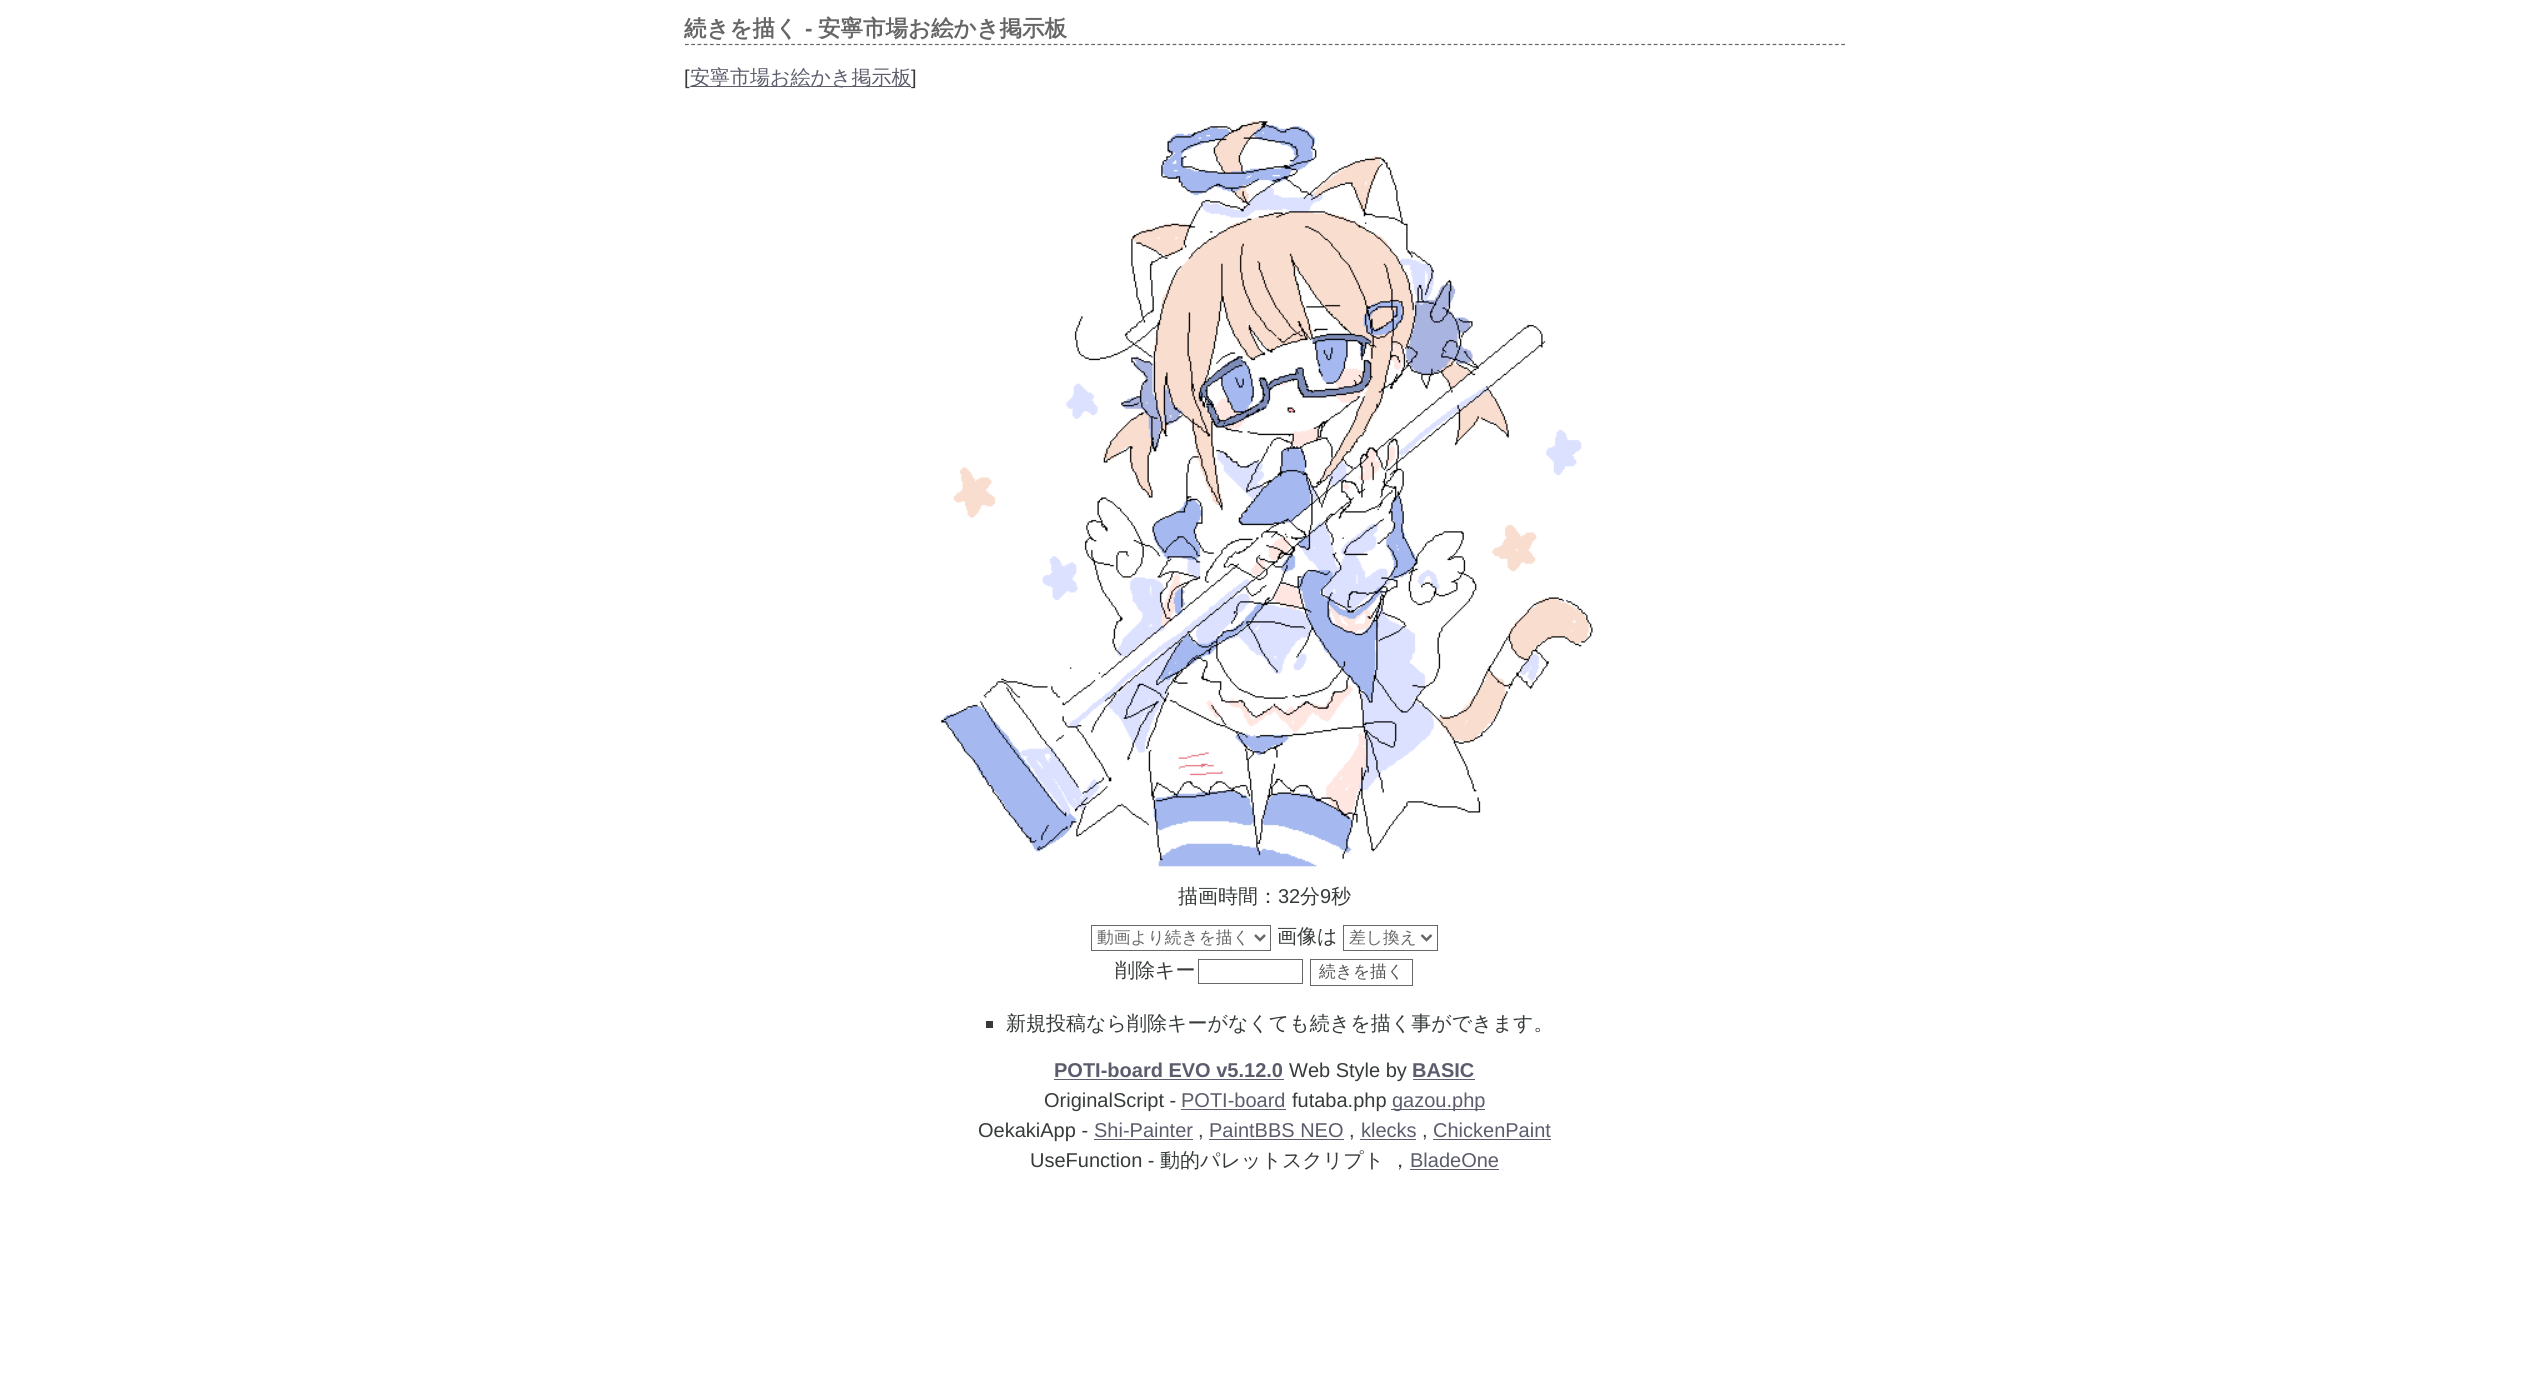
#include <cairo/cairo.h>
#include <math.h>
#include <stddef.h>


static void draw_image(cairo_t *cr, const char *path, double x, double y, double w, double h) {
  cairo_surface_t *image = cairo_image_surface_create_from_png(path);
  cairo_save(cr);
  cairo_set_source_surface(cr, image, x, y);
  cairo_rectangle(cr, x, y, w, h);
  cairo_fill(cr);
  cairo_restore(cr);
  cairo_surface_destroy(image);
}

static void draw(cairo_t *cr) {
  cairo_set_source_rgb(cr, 1, 1, 1);
  cairo_paint(cr);
  cairo_new_path(cr);
  cairo_move_to(cr, 685, 44.5);
  cairo_line_to(cr, 1845, 44.5);
  cairo_set_source_rgb(cr, 102 / 255.0, 102 / 255.0, 102 / 255.0);
  cairo_set_line_width(cr, 1.2);
  cairo_set_dash(cr, (double[]){3.75, 2.5}, 2, 0);
  cairo_stroke(cr);
  cairo_set_source_rgb(cr, 91 / 255.0, 92 / 255.0, 108 / 255.0);
  cairo_rectangle(cr, 690, 86, 221, 1);
  cairo_fill(cr);
  draw_image(cr, "images/1.png", 941, 121, 652, 746);
  cairo_rectangle(cr, 1091.5, 925.5, 179, 25);
  cairo_set_source_rgb(cr, 104 / 255.0, 104 / 255.0, 104 / 255.0);
  cairo_set_line_width(cr, 1);
  cairo_set_dash(cr, NULL, 0, 0);
  cairo_stroke(cr);
  cairo_new_path(cr);
  cairo_move_to(cr, 1255, 935);
  cairo_line_to(cr, 1260, 940);
  cairo_line_to(cr, 1265, 935);
  cairo_set_source_rgb(cr, 102 / 255.0, 102 / 255.0, 102 / 255.0);
  cairo_set_line_width(cr, 2.5);
  cairo_stroke(cr);
  cairo_rectangle(cr, 1343.5, 925.5, 94, 25);
  cairo_set_source_rgb(cr, 104 / 255.0, 104 / 255.0, 104 / 255.0);
  cairo_set_line_width(cr, 1);
  cairo_stroke(cr);
  cairo_new_path(cr);
  cairo_move_to(cr, 1421.5, 935);
  cairo_line_to(cr, 1426.5, 940);
  cairo_line_to(cr, 1431.5, 935);
  cairo_set_source_rgb(cr, 102 / 255.0, 102 / 255.0, 102 / 255.0);
  cairo_set_line_width(cr, 2.5);
  cairo_stroke(cr);
  cairo_rectangle(cr, 1198.5, 959.5, 104, 24);
  cairo_set_source_rgb(cr, 104 / 255.0, 104 / 255.0, 104 / 255.0);
  cairo_set_line_width(cr, 1);
  cairo_stroke(cr);
  cairo_rectangle(cr, 1310.5, 959.5, 102, 26);
  cairo_stroke(cr);
  cairo_set_source_rgb(cr, 54 / 255.0, 58 / 255.0, 58 / 255.0);
  cairo_rectangle(cr, 986, 1021, 7, 7);
  cairo_fill(cr);
  cairo_set_source_rgb(cr, 91 / 255.0, 92 / 255.0, 108 / 255.0);
  cairo_rectangle(cr, 1054, 1079, 230, 1);
  cairo_fill(cr);
  cairo_rectangle(cr, 1413, 1079, 62, 1);
  cairo_fill(cr);
  cairo_rectangle(cr, 1181, 1109, 105, 1);
  cairo_fill(cr);
  cairo_rectangle(cr, 1391, 1109, 94, 1);
  cairo_fill(cr);
  cairo_rectangle(cr, 1094, 1139, 99, 1);
  cairo_fill(cr);
  cairo_rectangle(cr, 1209, 1139, 135, 1);
  cairo_fill(cr);
  cairo_rectangle(cr, 1360, 1139, 56, 1);
  cairo_fill(cr);
  cairo_rectangle(cr, 1433, 1139, 118, 1);
  cairo_fill(cr);
  cairo_rectangle(cr, 1410, 1169, 89, 1);
  cairo_fill(cr);
  cairo_select_font_face(cr, "WenQuanYi Zen Hei", CAIRO_FONT_SLANT_NORMAL, CAIRO_FONT_WEIGHT_BOLD);
  cairo_set_font_size(cr, 22.5);
  cairo_set_source_rgb(cr, 102 / 255.0, 102 / 255.0, 102 / 255.0);
  cairo_move_to(cr, 684, 36);
  cairo_show_text(cr, "続きを描く");
  cairo_select_font_face(cr, "Liberation Sans", CAIRO_FONT_SLANT_NORMAL, CAIRO_FONT_WEIGHT_BOLD);
  cairo_move_to(cr, 805, 36);
  cairo_show_text(cr, "-");
  cairo_select_font_face(cr, "WenQuanYi Zen Hei", CAIRO_FONT_SLANT_NORMAL, CAIRO_FONT_WEIGHT_BOLD);
  cairo_move_to(cr, 818, 36);
  cairo_show_text(cr, "安寧市場お絵かき掲示板");
  cairo_select_font_face(cr, "Liberation Sans", CAIRO_FONT_SLANT_NORMAL, CAIRO_FONT_WEIGHT_NORMAL);
  cairo_set_font_size(cr, 20);
  cairo_set_source_rgb(cr, 54 / 255.0, 58 / 255.0, 58 / 255.0);
  cairo_move_to(cr, 684, 84);
  cairo_show_text(cr, "[");
  cairo_select_font_face(cr, "WenQuanYi Zen Hei Medium", CAIRO_FONT_SLANT_NORMAL, CAIRO_FONT_WEIGHT_NORMAL);
  cairo_set_source_rgb(cr, 91 / 255.0, 92 / 255.0, 108 / 255.0);
  cairo_move_to(cr, 690, 84);
  cairo_show_text(cr, "安寧市場お絵かき掲示板");
  cairo_select_font_face(cr, "Liberation Sans", CAIRO_FONT_SLANT_NORMAL, CAIRO_FONT_WEIGHT_NORMAL);
  cairo_set_source_rgb(cr, 54 / 255.0, 58 / 255.0, 58 / 255.0);
  cairo_move_to(cr, 911, 84);
  cairo_show_text(cr, "]");
  cairo_select_font_face(cr, "WenQuanYi Zen Hei Medium", CAIRO_FONT_SLANT_NORMAL, CAIRO_FONT_WEIGHT_NORMAL);
  cairo_move_to(cr, 1178, 903);
  cairo_show_text(cr, "描画時間：");
  cairo_select_font_face(cr, "Liberation Sans", CAIRO_FONT_SLANT_NORMAL, CAIRO_FONT_WEIGHT_NORMAL);
  cairo_move_to(cr, 1278, 903);
  cairo_show_text(cr, "32");
  cairo_select_font_face(cr, "WenQuanYi Zen Hei Medium", CAIRO_FONT_SLANT_NORMAL, CAIRO_FONT_WEIGHT_NORMAL);
  cairo_move_to(cr, 1300, 903);
  cairo_show_text(cr, "分");
  cairo_select_font_face(cr, "Liberation Sans", CAIRO_FONT_SLANT_NORMAL, CAIRO_FONT_WEIGHT_NORMAL);
  cairo_move_to(cr, 1320, 903);
  cairo_show_text(cr, "9");
  cairo_select_font_face(cr, "WenQuanYi Zen Hei Medium", CAIRO_FONT_SLANT_NORMAL, CAIRO_FONT_WEIGHT_NORMAL);
  cairo_move_to(cr, 1331, 903);
  cairo_show_text(cr, "秒");
  cairo_set_font_size(cr, 16.75);
  cairo_set_source_rgb(cr, 102 / 255.0, 102 / 255.0, 102 / 255.0);
  cairo_move_to(cr, 1097, 943);
  cairo_show_text(cr, "動画より続きを描く");
  cairo_set_font_size(cr, 20);
  cairo_set_source_rgb(cr, 54 / 255.0, 58 / 255.0, 58 / 255.0);
  cairo_move_to(cr, 1277, 943);
  cairo_show_text(cr, "画像は");
  cairo_set_font_size(cr, 16.75);
  cairo_set_source_rgb(cr, 102 / 255.0, 102 / 255.0, 102 / 255.0);
  cairo_move_to(cr, 1349, 943);
  cairo_show_text(cr, "差し換え");
  cairo_set_font_size(cr, 20);
  cairo_set_source_rgb(cr, 54 / 255.0, 58 / 255.0, 58 / 255.0);
  cairo_move_to(cr, 1115, 977);
  cairo_show_text(cr, "削除キー");
  cairo_set_font_size(cr, 16.75);
  cairo_set_source_rgb(cr, 85 / 255.0, 85 / 255.0, 85 / 255.0);
  cairo_move_to(cr, 1319, 977);
  cairo_show_text(cr, "続きを描く");
  cairo_set_font_size(cr, 20);
  cairo_set_source_rgb(cr, 54 / 255.0, 58 / 255.0, 58 / 255.0);
  cairo_move_to(cr, 1006, 1030);
  cairo_show_text(cr, "新規投稿なら削除キーがなくても続きを描く事ができます。");
  cairo_select_font_face(cr, "Liberation Sans", CAIRO_FONT_SLANT_NORMAL, CAIRO_FONT_WEIGHT_BOLD);
  cairo_set_source_rgb(cr, 91 / 255.0, 92 / 255.0, 108 / 255.0);
  cairo_move_to(cr, 1054, 1077);
  cairo_show_text(cr, "POTI-board EVO v5.12.0");
  cairo_select_font_face(cr, "Liberation Sans", CAIRO_FONT_SLANT_NORMAL, CAIRO_FONT_WEIGHT_NORMAL);
  cairo_set_source_rgb(cr, 54 / 255.0, 58 / 255.0, 58 / 255.0);
  cairo_move_to(cr, 1289, 1077);
  cairo_show_text(cr, "Web Style by");
  cairo_select_font_face(cr, "Liberation Sans", CAIRO_FONT_SLANT_NORMAL, CAIRO_FONT_WEIGHT_BOLD);
  cairo_set_source_rgb(cr, 91 / 255.0, 92 / 255.0, 108 / 255.0);
  cairo_move_to(cr, 1412, 1077);
  cairo_show_text(cr, "BASIC");
  cairo_select_font_face(cr, "Liberation Sans", CAIRO_FONT_SLANT_NORMAL, CAIRO_FONT_WEIGHT_NORMAL);
  cairo_set_source_rgb(cr, 54 / 255.0, 58 / 255.0, 58 / 255.0);
  cairo_move_to(cr, 1044, 1107);
  cairo_show_text(cr, "OriginalScript -");
  cairo_set_source_rgb(cr, 91 / 255.0, 92 / 255.0, 108 / 255.0);
  cairo_move_to(cr, 1181, 1107);
  cairo_show_text(cr, "POTI-board");
  cairo_set_source_rgb(cr, 54 / 255.0, 58 / 255.0, 58 / 255.0);
  cairo_move_to(cr, 1292, 1107);
  cairo_show_text(cr, "futaba.php");
  cairo_set_source_rgb(cr, 91 / 255.0, 92 / 255.0, 108 / 255.0);
  cairo_move_to(cr, 1392, 1107);
  cairo_show_text(cr, "gazou.php");
  cairo_set_source_rgb(cr, 54 / 255.0, 58 / 255.0, 58 / 255.0);
  cairo_move_to(cr, 978, 1137);
  cairo_show_text(cr, "OekakiApp -");
  cairo_set_source_rgb(cr, 91 / 255.0, 92 / 255.0, 108 / 255.0);
  cairo_move_to(cr, 1094, 1137);
  cairo_show_text(cr, "Shi-Painter");
  cairo_set_source_rgb(cr, 54 / 255.0, 58 / 255.0, 58 / 255.0);
  cairo_move_to(cr, 1198, 1137);
  cairo_show_text(cr, ",");
  cairo_set_source_rgb(cr, 91 / 255.0, 92 / 255.0, 108 / 255.0);
  cairo_move_to(cr, 1209, 1137);
  cairo_show_text(cr, "PaintBBS NEO");
  cairo_set_source_rgb(cr, 54 / 255.0, 58 / 255.0, 58 / 255.0);
  cairo_move_to(cr, 1349, 1137);
  cairo_show_text(cr, ",");
  cairo_set_source_rgb(cr, 91 / 255.0, 92 / 255.0, 108 / 255.0);
  cairo_move_to(cr, 1361, 1137);
  cairo_show_text(cr, "klecks");
  cairo_set_source_rgb(cr, 54 / 255.0, 58 / 255.0, 58 / 255.0);
  cairo_move_to(cr, 1422, 1137);
  cairo_show_text(cr, ",");
  cairo_set_source_rgb(cr, 91 / 255.0, 92 / 255.0, 108 / 255.0);
  cairo_move_to(cr, 1433, 1137);
  cairo_show_text(cr, "ChickenPaint");
  cairo_set_source_rgb(cr, 54 / 255.0, 58 / 255.0, 58 / 255.0);
  cairo_move_to(cr, 1030, 1167);
  cairo_show_text(cr, "UseFunction -");
  cairo_select_font_face(cr, "WenQuanYi Zen Hei Medium", CAIRO_FONT_SLANT_NORMAL, CAIRO_FONT_WEIGHT_NORMAL);
  cairo_move_to(cr, 1160, 1167);
  cairo_show_text(cr, "動的パレットスクリプト");
  cairo_move_to(cr, 1390, 1167);
  cairo_show_text(cr, "，");
  cairo_select_font_face(cr, "Liberation Sans", CAIRO_FONT_SLANT_NORMAL, CAIRO_FONT_WEIGHT_NORMAL);
  cairo_set_source_rgb(cr, 91 / 255.0, 92 / 255.0, 108 / 255.0);
  cairo_move_to(cr, 1410, 1167);
  cairo_show_text(cr, "BladeOne");
}

int main(void) {
  cairo_surface_t *surface = cairo_image_surface_create(CAIRO_FORMAT_RGB24, 2528, 1377);
  cairo_t *cr = cairo_create(surface);
  cairo_font_options_t *options = cairo_font_options_create();
  cairo_font_options_set_hint_metrics(options, CAIRO_HINT_METRICS_OFF);
  cairo_font_options_set_hint_style(options, CAIRO_HINT_STYLE_NONE);
  cairo_set_font_options(cr, options);
  cairo_set_miter_limit(cr, 4);
  draw(cr);
  cairo_surface_write_to_png(surface, "out.png");
  cairo_font_options_destroy(options);
  cairo_destroy(cr);
  cairo_surface_destroy(surface);
  return 0;
}
